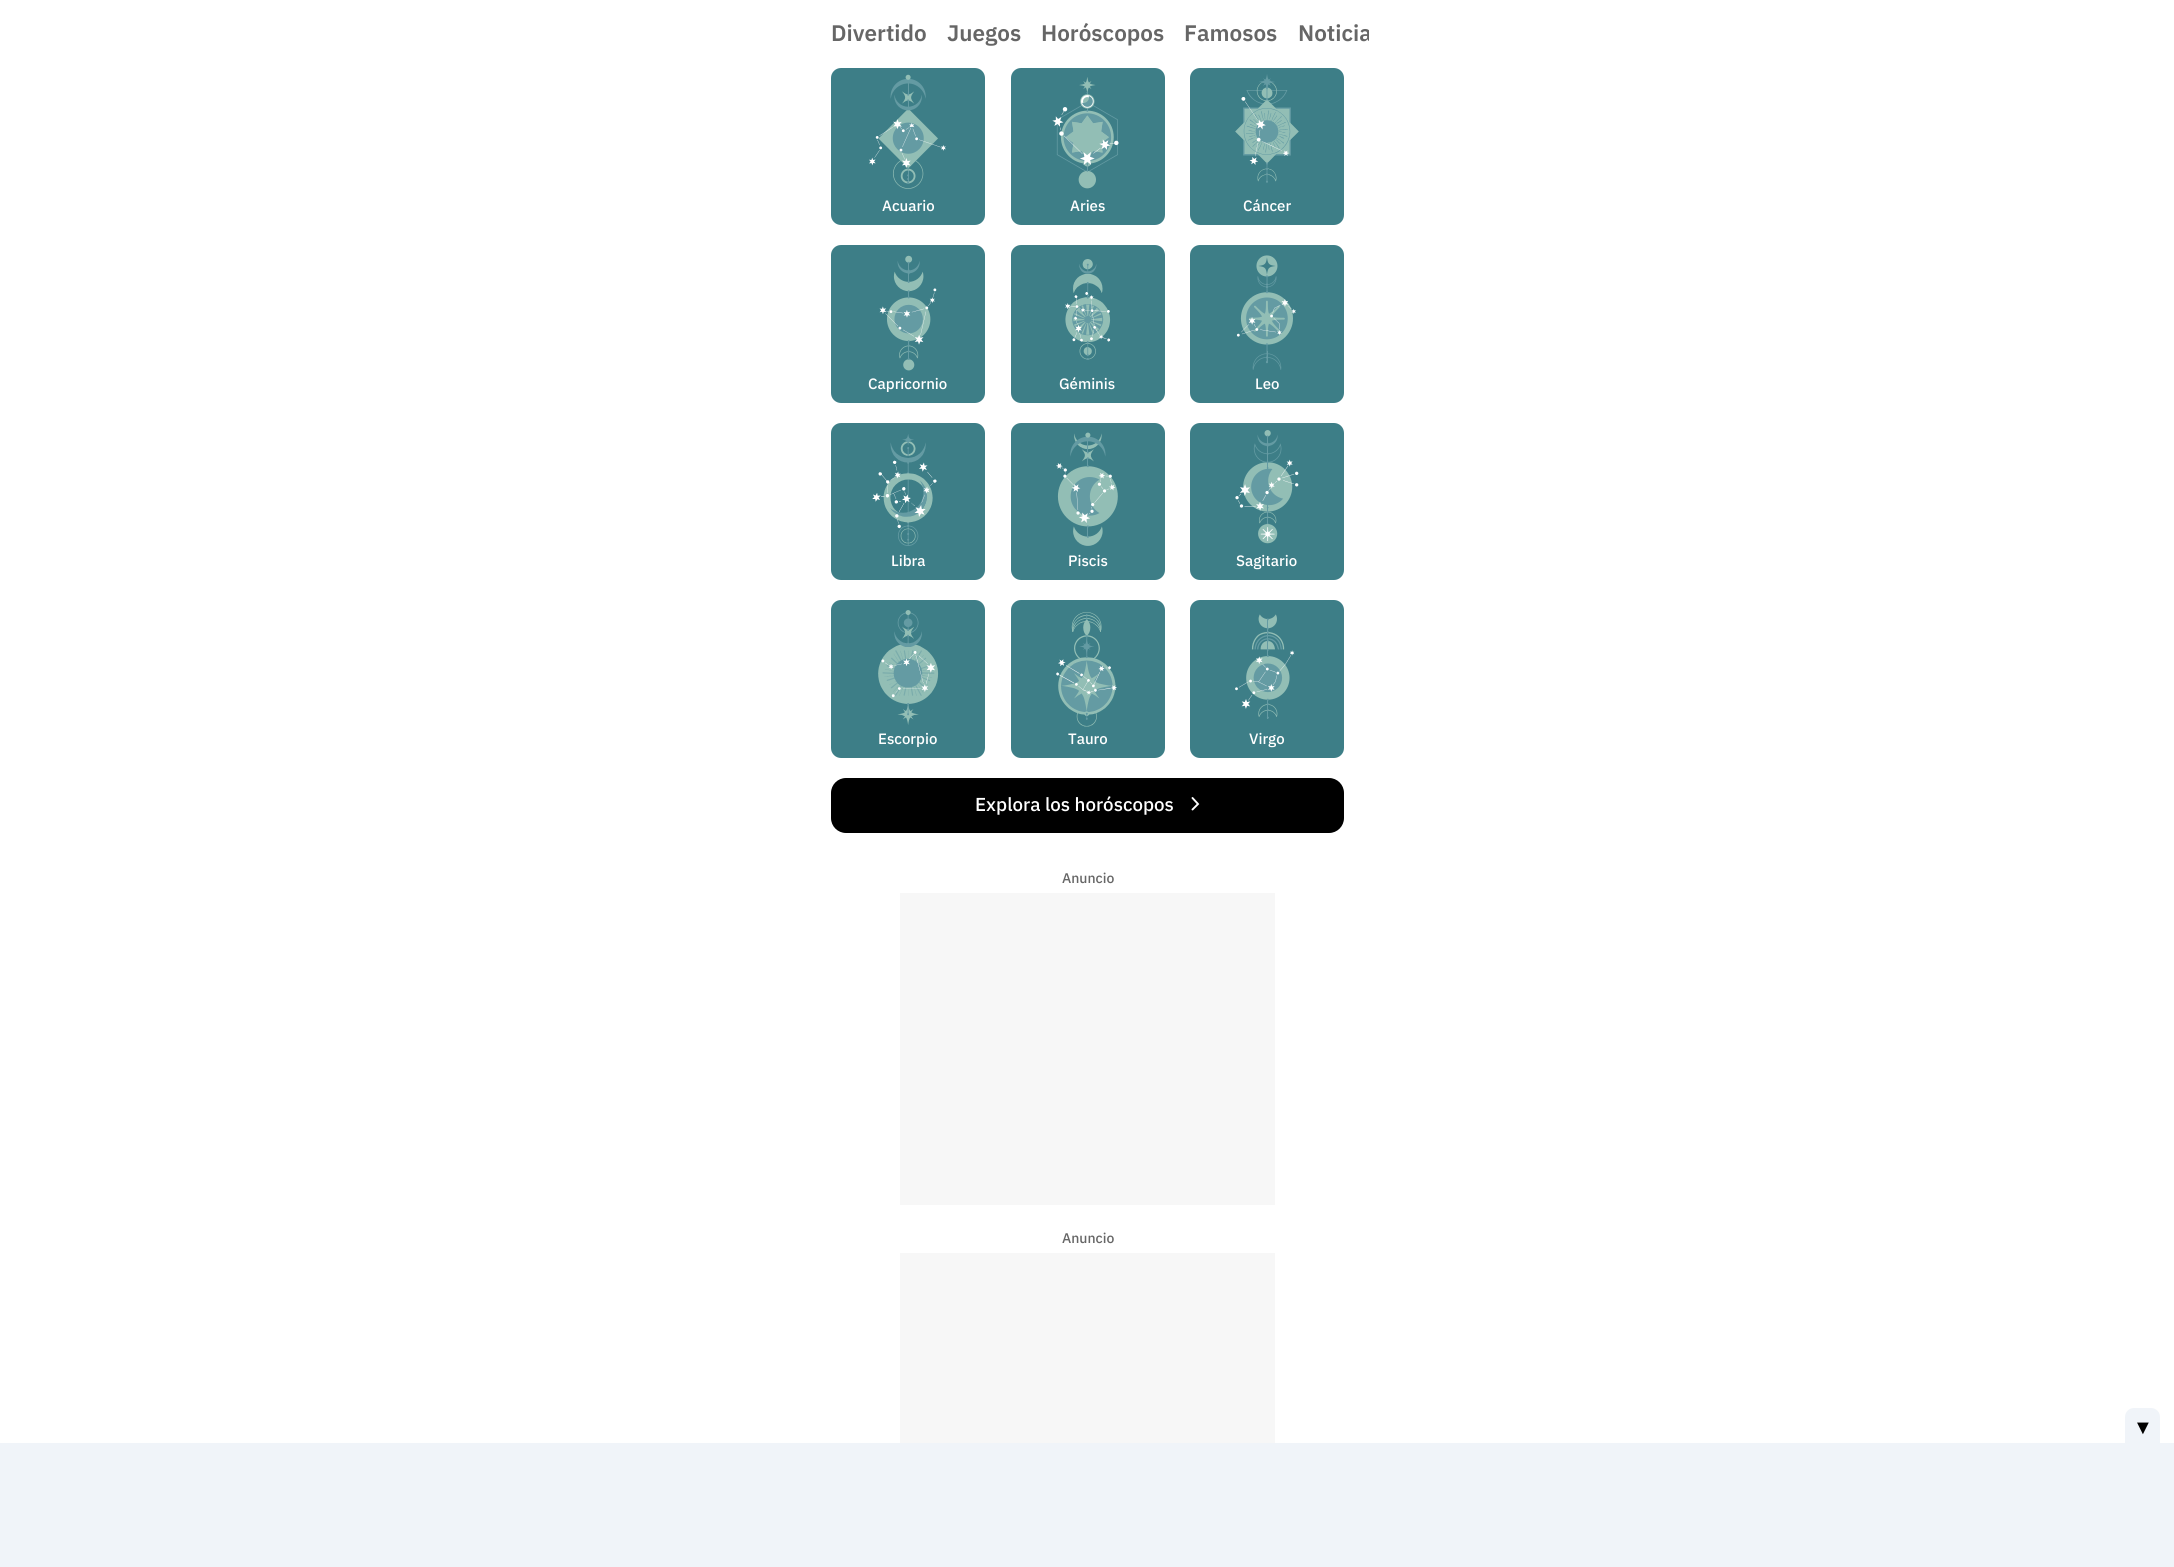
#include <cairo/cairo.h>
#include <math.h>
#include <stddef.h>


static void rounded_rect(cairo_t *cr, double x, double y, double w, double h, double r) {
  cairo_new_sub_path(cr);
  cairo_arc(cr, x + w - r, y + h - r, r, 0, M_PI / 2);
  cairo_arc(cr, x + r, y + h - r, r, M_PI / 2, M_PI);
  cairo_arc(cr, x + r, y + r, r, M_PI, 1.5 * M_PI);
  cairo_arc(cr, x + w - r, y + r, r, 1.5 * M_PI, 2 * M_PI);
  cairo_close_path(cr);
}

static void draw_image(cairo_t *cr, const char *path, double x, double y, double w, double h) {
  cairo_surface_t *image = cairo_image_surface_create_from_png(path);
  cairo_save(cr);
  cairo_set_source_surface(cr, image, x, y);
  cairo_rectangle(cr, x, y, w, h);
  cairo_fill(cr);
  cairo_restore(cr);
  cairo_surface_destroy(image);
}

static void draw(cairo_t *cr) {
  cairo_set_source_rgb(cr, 1, 1, 1);
  cairo_paint(cr);
  cairo_set_source_rgb(cr, 61 / 255.0, 126 / 255.0, 135 / 255.0);
  rounded_rect(cr, 831, 68, 154, 157, 10);
  cairo_fill(cr);
  draw_image(cr, "images/1.png", 869, 74, 77, 115);
  rounded_rect(cr, 1011, 68, 154, 157, 10);
  cairo_fill(cr);
  draw_image(cr, "images/2.png", 1052, 77, 67, 112);
  rounded_rect(cr, 1190, 68, 154, 157, 10);
  cairo_fill(cr);
  draw_image(cr, "images/3.png", 1235, 74, 64, 109);
  rounded_rect(cr, 831, 245, 154, 158, 10);
  cairo_fill(cr);
  draw_image(cr, "images/4.png", 879, 255, 58, 116);
  rounded_rect(cr, 1011, 245, 154, 158, 10);
  cairo_fill(cr);
  draw_image(cr, "images/5.png", 1065, 259, 46, 101);
  rounded_rect(cr, 1190, 245, 154, 158, 10);
  cairo_fill(cr);
  draw_image(cr, "images/6.png", 1236, 255, 60, 115);
  rounded_rect(cr, 831, 423, 154, 157, 10);
  cairo_fill(cr);
  draw_image(cr, "images/7.png", 872, 434, 65, 112);
  rounded_rect(cr, 1011, 423, 154, 157, 10);
  cairo_fill(cr);
  draw_image(cr, "images/8.png", 1056, 432, 62, 114);
  rounded_rect(cr, 1190, 423, 154, 157, 10);
  cairo_fill(cr);
  draw_image(cr, "images/9.png", 1235, 430, 64, 114);
  rounded_rect(cr, 831, 600, 154, 158, 10);
  cairo_fill(cr);
  draw_image(cr, "images/10.png", 878, 610, 61, 115);
  rounded_rect(cr, 1011, 600, 154, 158, 10);
  cairo_fill(cr);
  draw_image(cr, "images/11.png", 1056, 612, 61, 115);
  rounded_rect(cr, 1190, 600, 154, 158, 10);
  cairo_fill(cr);
  draw_image(cr, "images/12.png", 1235, 614, 60, 105);
  cairo_set_source_rgb(cr, 0, 0, 0);
  rounded_rect(cr, 831, 778, 513, 55, 15);
  cairo_fill(cr);
  cairo_new_path(cr);
  cairo_move_to(cr, 1192.5, 798);
  cairo_line_to(cr, 1198, 804);
  cairo_line_to(cr, 1192.5, 809.5);
  cairo_set_source_rgb(cr, 1, 1, 1);
  cairo_set_line_width(cr, 1.9);
  cairo_set_line_cap(cr, CAIRO_LINE_CAP_ROUND);
  cairo_stroke(cr);
  cairo_set_source_rgb(cr, 247 / 255.0, 247 / 255.0, 247 / 255.0);
  cairo_rectangle(cr, 900, 893, 375, 312);
  cairo_fill(cr);
  cairo_rectangle(cr, 900, 1253, 375, 190);
  cairo_fill(cr);
  cairo_set_source_rgb(cr, 240 / 255.0, 244 / 255.0, 249 / 255.0);
  cairo_rectangle(cr, 0, 1443, 2174, 124);
  cairo_fill(cr);
  cairo_new_path(cr);
  cairo_move_to(cr, 2134, 1408);
  cairo_line_to(cr, 2151, 1408);
  cairo_curve_to(cr, 2156, 1408, 2160, 1412, 2160, 1417);
  cairo_line_to(cr, 2160, 1443);
  cairo_line_to(cr, 2125, 1443);
  cairo_line_to(cr, 2125, 1417);
  cairo_curve_to(cr, 2125, 1412, 2129, 1408, 2134, 1408);
  cairo_close_path(cr);
  cairo_fill(cr);
  cairo_select_font_face(cr, "IBM Plex Sans SemiBold", CAIRO_FONT_SLANT_NORMAL, CAIRO_FONT_WEIGHT_NORMAL);
  cairo_set_font_size(cr, 22.5);
  cairo_set_source_rgb(cr, 102 / 255.0, 102 / 255.0, 102 / 255.0);
  cairo_move_to(cr, 831, 41);
  cairo_show_text(cr, "Divertido");
  cairo_move_to(cr, 947, 41);
  cairo_show_text(cr, "Juegos");
  cairo_move_to(cr, 1041, 41);
  cairo_show_text(cr, "Horóscopos");
  cairo_move_to(cr, 1184, 41);
  cairo_show_text(cr, "Famosos");
  cairo_save(cr);
  cairo_rectangle(cr, 806, 0, 563, 68);
  cairo_clip(cr);
  cairo_move_to(cr, 1298, 41);
  cairo_show_text(cr, "Noticia");
  cairo_restore(cr);
  cairo_select_font_face(cr, "IBM Plex Sans Medium", CAIRO_FONT_SLANT_NORMAL, CAIRO_FONT_WEIGHT_NORMAL);
  cairo_set_font_size(cr, 15);
  cairo_set_source_rgb(cr, 1, 1, 1);
  cairo_move_to(cr, 882, 211);
  cairo_show_text(cr, "Acuario");
  cairo_move_to(cr, 1070, 211);
  cairo_show_text(cr, "Aries");
  cairo_move_to(cr, 1243, 211);
  cairo_show_text(cr, "Cáncer");
  cairo_move_to(cr, 868, 389);
  cairo_show_text(cr, "Capricornio");
  cairo_move_to(cr, 1059, 389);
  cairo_show_text(cr, "Géminis");
  cairo_move_to(cr, 1255, 389);
  cairo_show_text(cr, "Leo");
  cairo_move_to(cr, 891, 566);
  cairo_show_text(cr, "Libra");
  cairo_move_to(cr, 1068, 566);
  cairo_show_text(cr, "Piscis");
  cairo_move_to(cr, 1236, 566);
  cairo_show_text(cr, "Sagitario");
  cairo_move_to(cr, 878, 744);
  cairo_show_text(cr, "Escorpio");
  cairo_move_to(cr, 1068, 744);
  cairo_show_text(cr, "Tauro");
  cairo_move_to(cr, 1249, 744);
  cairo_show_text(cr, "Virgo");
  cairo_set_font_size(cr, 18.75);
  cairo_move_to(cr, 975, 811);
  cairo_show_text(cr, "Explora los horóscopos");
  cairo_set_font_size(cr, 14);
  cairo_set_source_rgb(cr, 102 / 255.0, 102 / 255.0, 102 / 255.0);
  cairo_move_to(cr, 1062, 883);
  cairo_show_text(cr, "Anuncio");
  cairo_move_to(cr, 1062, 1243);
  cairo_show_text(cr, "Anuncio");
  cairo_select_font_face(cr, "Liberation Sans", CAIRO_FONT_SLANT_NORMAL, CAIRO_FONT_WEIGHT_NORMAL);
  cairo_set_font_size(cr, 20);
  cairo_set_source_rgb(cr, 0, 0, 0);
  cairo_move_to(cr, 2133, 1434);
  cairo_show_text(cr, "▼");
}

int main(void) {
  cairo_surface_t *surface = cairo_image_surface_create(CAIRO_FORMAT_RGB24, 2174, 1567);
  cairo_t *cr = cairo_create(surface);
  cairo_font_options_t *options = cairo_font_options_create();
  cairo_font_options_set_hint_metrics(options, CAIRO_HINT_METRICS_OFF);
  cairo_font_options_set_hint_style(options, CAIRO_HINT_STYLE_NONE);
  cairo_set_font_options(cr, options);
  cairo_set_miter_limit(cr, 4);
  draw(cr);
  cairo_surface_write_to_png(surface, "out.png");
  cairo_font_options_destroy(options);
  cairo_destroy(cr);
  cairo_surface_destroy(surface);
  return 0;
}
